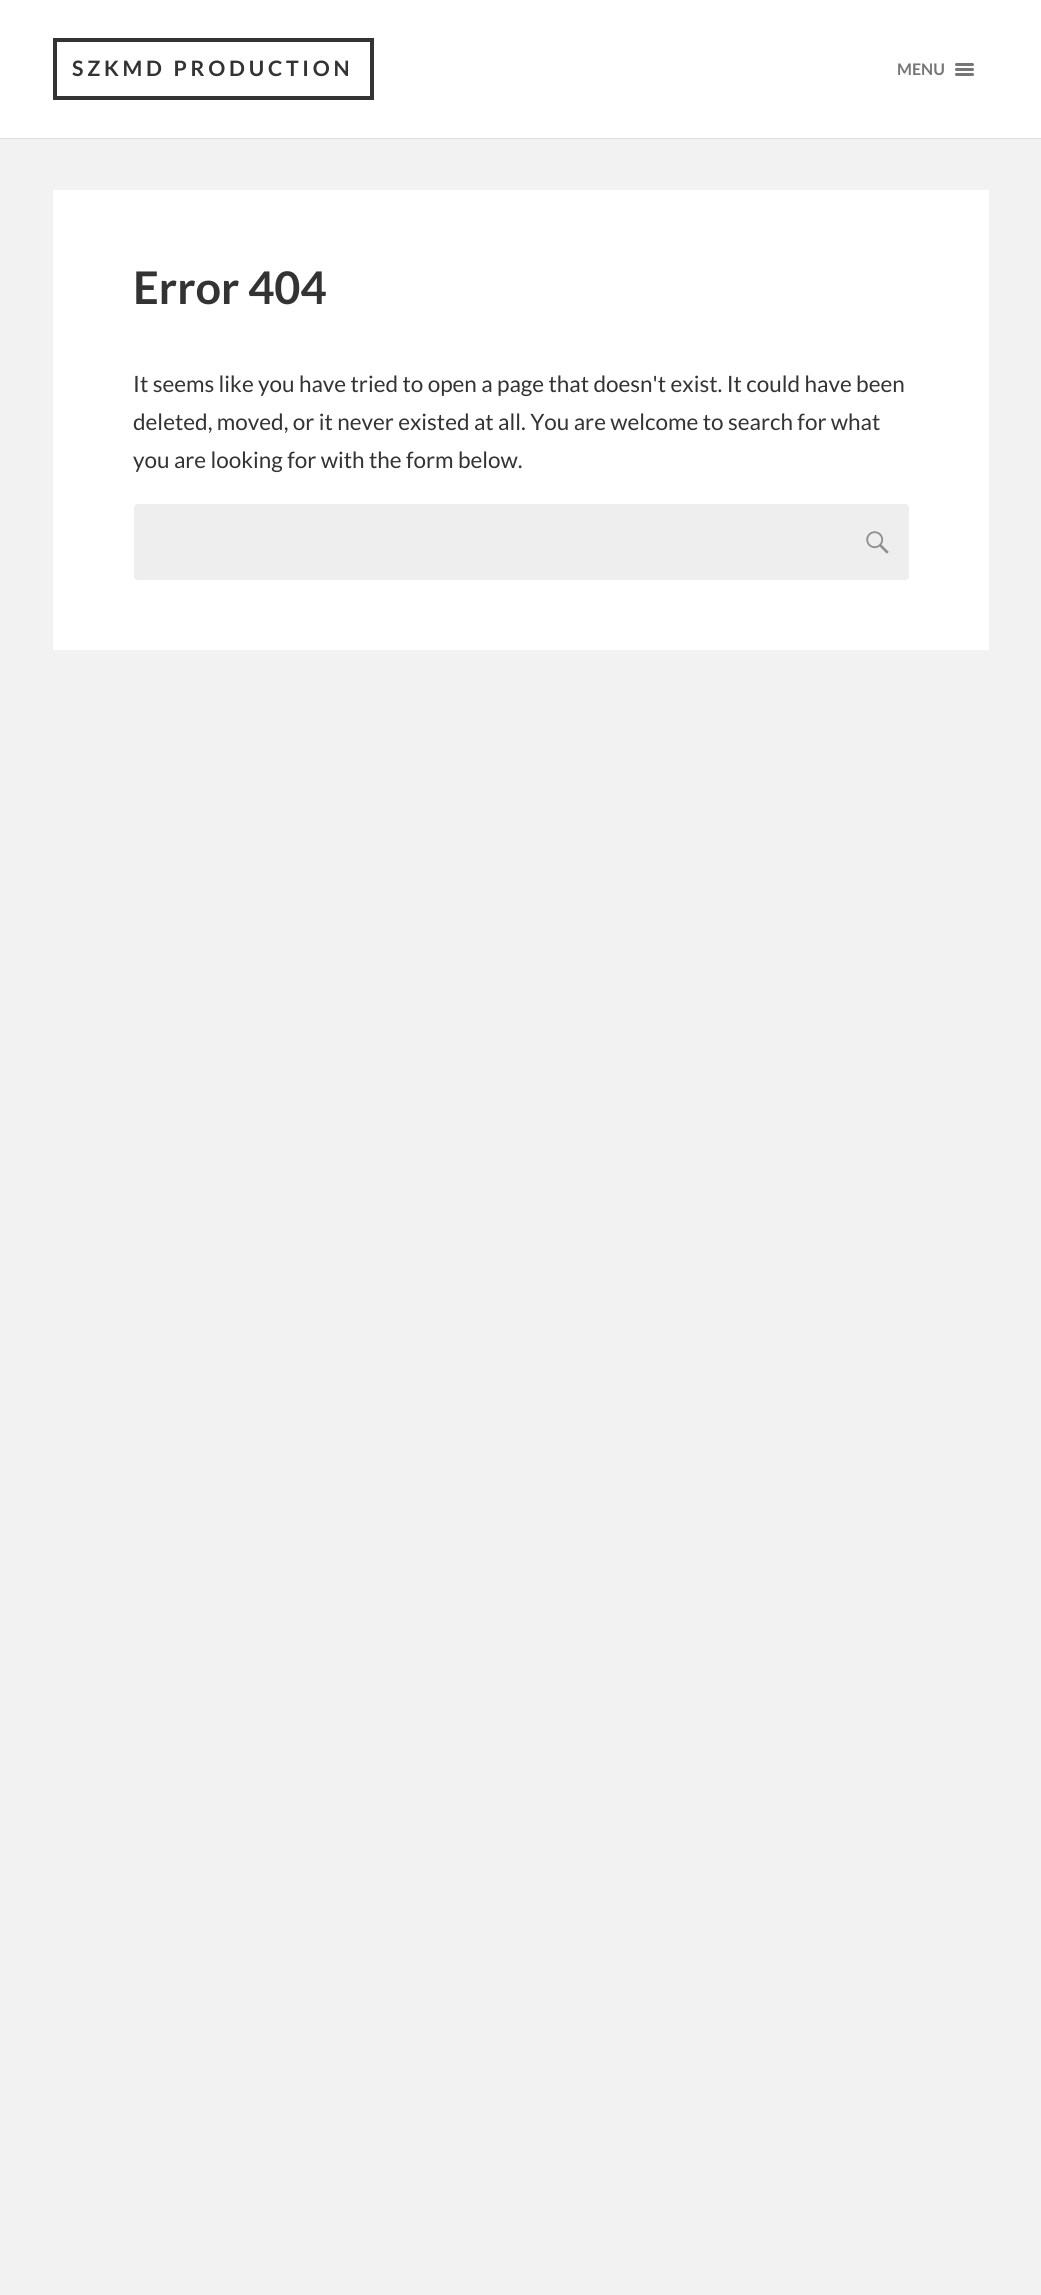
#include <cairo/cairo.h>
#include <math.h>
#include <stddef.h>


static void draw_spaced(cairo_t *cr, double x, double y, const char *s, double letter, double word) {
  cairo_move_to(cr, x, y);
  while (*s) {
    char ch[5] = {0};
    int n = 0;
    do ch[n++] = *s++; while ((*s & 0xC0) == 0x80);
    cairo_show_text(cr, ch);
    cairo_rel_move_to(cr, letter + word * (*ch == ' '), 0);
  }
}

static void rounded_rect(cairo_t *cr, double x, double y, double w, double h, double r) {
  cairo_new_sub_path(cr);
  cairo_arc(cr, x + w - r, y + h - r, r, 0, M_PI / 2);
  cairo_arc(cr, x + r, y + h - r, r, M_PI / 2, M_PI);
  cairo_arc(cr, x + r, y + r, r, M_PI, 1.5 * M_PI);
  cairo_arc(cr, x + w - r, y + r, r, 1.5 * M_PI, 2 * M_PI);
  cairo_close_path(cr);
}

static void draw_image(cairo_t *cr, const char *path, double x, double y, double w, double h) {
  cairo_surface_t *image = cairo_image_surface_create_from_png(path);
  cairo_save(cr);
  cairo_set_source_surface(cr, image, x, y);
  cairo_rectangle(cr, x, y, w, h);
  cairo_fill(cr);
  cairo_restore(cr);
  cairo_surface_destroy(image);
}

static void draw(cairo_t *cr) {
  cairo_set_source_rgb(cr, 242 / 255.0, 242 / 255.0, 242 / 255.0);
  cairo_paint(cr);
  cairo_set_source_rgb(cr, 1, 1, 1);
  cairo_rectangle(cr, 0, 0, 1041, 138);
  cairo_fill(cr);
  cairo_set_source_rgb(cr, 221 / 255.0, 221 / 255.0, 221 / 255.0);
  cairo_rectangle(cr, 0, 138, 1041, 1);
  cairo_fill(cr);
  cairo_rectangle(cr, 55, 40, 317, 58);
  cairo_set_source_rgb(cr, 51 / 255.0, 51 / 255.0, 51 / 255.0);
  cairo_set_line_width(cr, 4);
  cairo_stroke(cr);
  cairo_set_source_rgb(cr, 118 / 255.0, 118 / 255.0, 118 / 255.0);
  rounded_rect(cr, 955, 63, 19, 3, 1.5);
  cairo_fill(cr);
  rounded_rect(cr, 955, 68, 19, 3, 1.5);
  cairo_fill(cr);
  rounded_rect(cr, 955, 73, 19, 3, 1.5);
  cairo_fill(cr);
  cairo_set_source_rgb(cr, 1, 1, 1);
  cairo_rectangle(cr, 53, 190, 936, 460);
  cairo_fill(cr);
  cairo_set_source_rgb(cr, 238 / 255.0, 238 / 255.0, 238 / 255.0);
  rounded_rect(cr, 134, 504, 775, 76, 4);
  cairo_fill(cr);
  draw_image(cr, "images/1.png", 866, 531, 23, 23);
  cairo_select_font_face(cr, "Lato", CAIRO_FONT_SLANT_NORMAL, CAIRO_FONT_WEIGHT_BOLD);
  cairo_set_font_size(cr, 21.25);
  cairo_set_source_rgb(cr, 51 / 255.0, 51 / 255.0, 51 / 255.0);
  draw_spaced(cr, 72, 76, "SZKMD PRODUCTION", 3.75, 0);
  cairo_set_font_size(cr, 16);
  cairo_set_source_rgb(cr, 118 / 255.0, 118 / 255.0, 118 / 255.0);
  cairo_move_to(cr, 897, 75);
  cairo_show_text(cr, "MENU");
  cairo_set_font_size(cr, 45);
  cairo_set_source_rgb(cr, 51 / 255.0, 51 / 255.0, 51 / 255.0);
  cairo_move_to(cr, 133, 304);
  cairo_show_text(cr, "Error 404");
  cairo_select_font_face(cr, "Lato", CAIRO_FONT_SLANT_NORMAL, CAIRO_FONT_WEIGHT_NORMAL);
  cairo_set_font_size(cr, 22.5);
  cairo_move_to(cr, 133, 392);
  cairo_show_text(cr, "It seems like you have tried to open a page that doesn't exist. It could have been");
  cairo_move_to(cr, 133, 430);
  cairo_show_text(cr, "deleted, moved, or it never existed at all. You are welcome to search for what");
  cairo_move_to(cr, 133, 468);
  cairo_show_text(cr, "you are looking for with the form below.");
}

int main(void) {
  cairo_surface_t *surface = cairo_image_surface_create(CAIRO_FORMAT_RGB24, 1041, 2295);
  cairo_t *cr = cairo_create(surface);
  cairo_font_options_t *options = cairo_font_options_create();
  cairo_font_options_set_hint_metrics(options, CAIRO_HINT_METRICS_OFF);
  cairo_font_options_set_hint_style(options, CAIRO_HINT_STYLE_NONE);
  cairo_set_font_options(cr, options);
  cairo_set_miter_limit(cr, 4);
  draw(cr);
  cairo_surface_write_to_png(surface, "out.png");
  cairo_font_options_destroy(options);
  cairo_destroy(cr);
  cairo_surface_destroy(surface);
  return 0;
}
